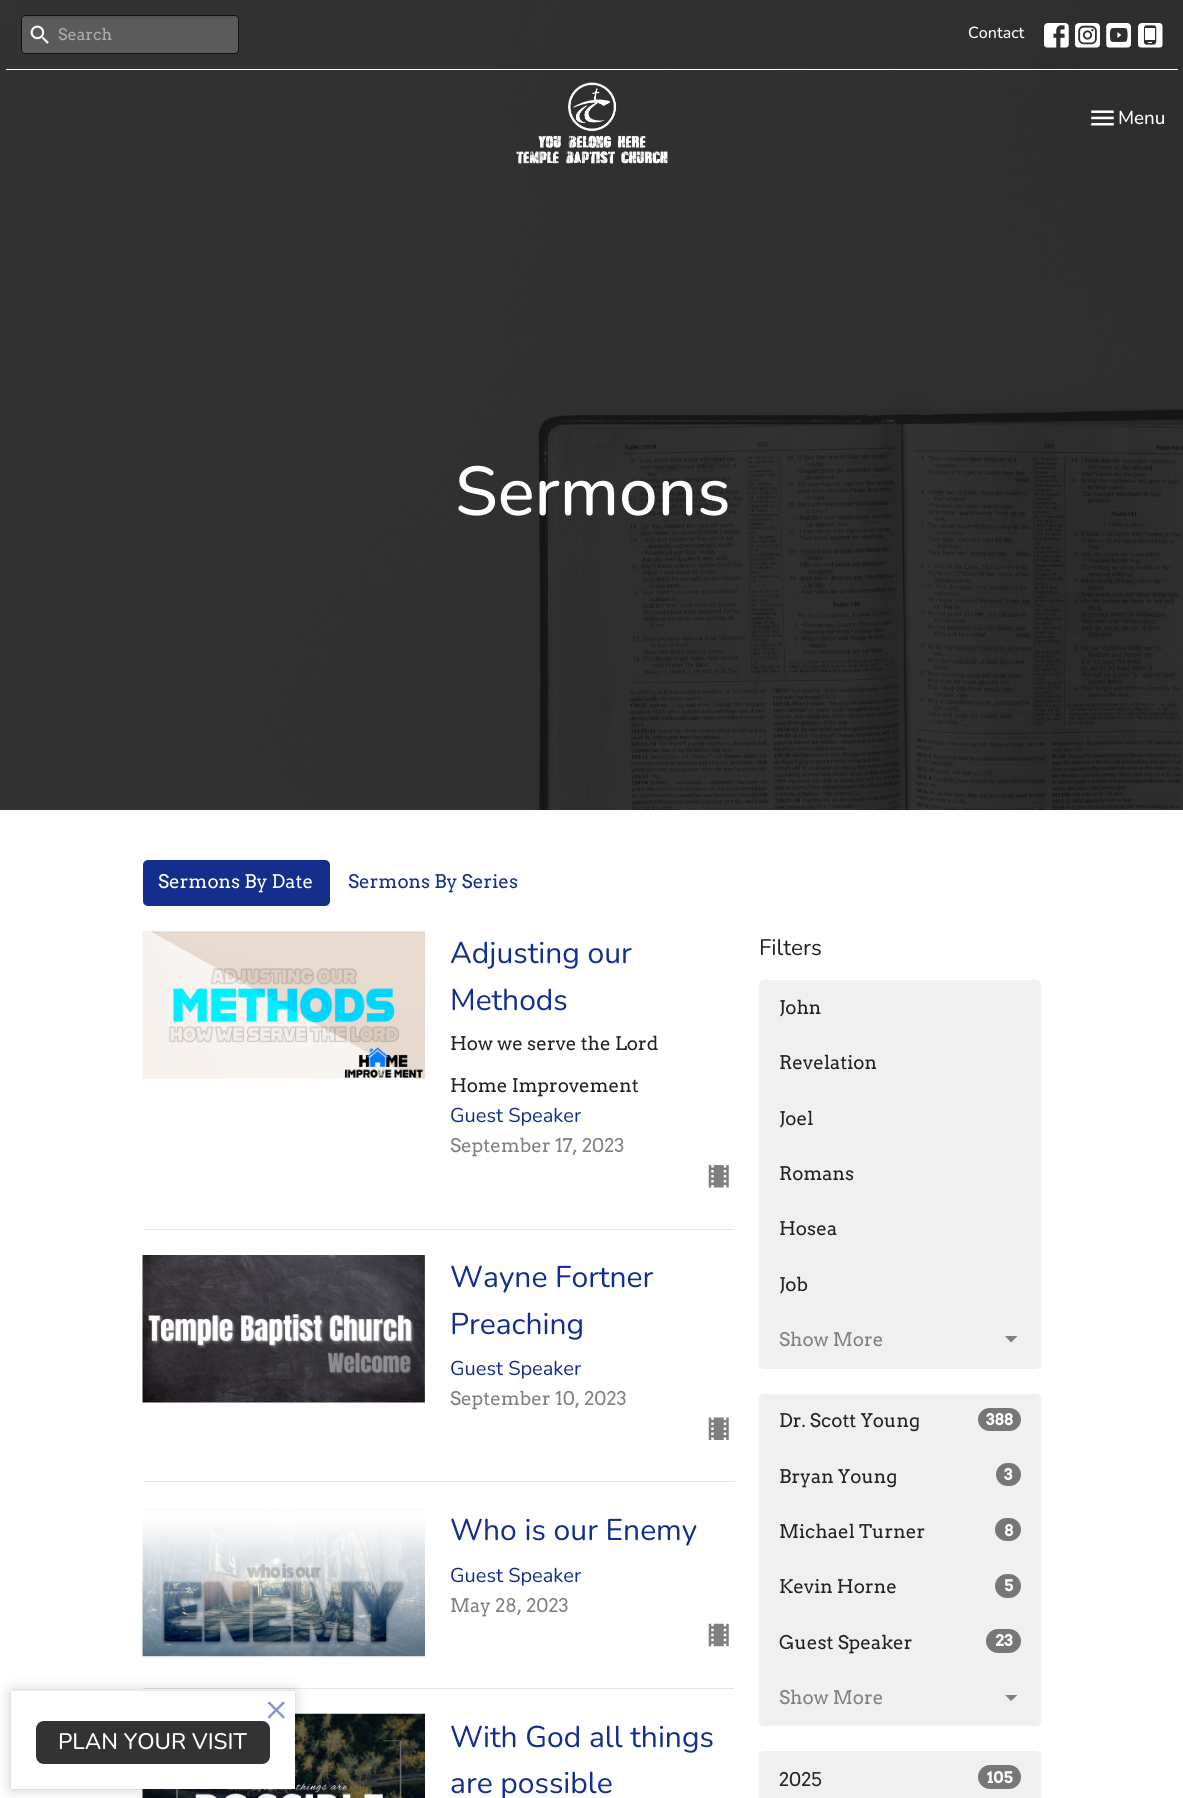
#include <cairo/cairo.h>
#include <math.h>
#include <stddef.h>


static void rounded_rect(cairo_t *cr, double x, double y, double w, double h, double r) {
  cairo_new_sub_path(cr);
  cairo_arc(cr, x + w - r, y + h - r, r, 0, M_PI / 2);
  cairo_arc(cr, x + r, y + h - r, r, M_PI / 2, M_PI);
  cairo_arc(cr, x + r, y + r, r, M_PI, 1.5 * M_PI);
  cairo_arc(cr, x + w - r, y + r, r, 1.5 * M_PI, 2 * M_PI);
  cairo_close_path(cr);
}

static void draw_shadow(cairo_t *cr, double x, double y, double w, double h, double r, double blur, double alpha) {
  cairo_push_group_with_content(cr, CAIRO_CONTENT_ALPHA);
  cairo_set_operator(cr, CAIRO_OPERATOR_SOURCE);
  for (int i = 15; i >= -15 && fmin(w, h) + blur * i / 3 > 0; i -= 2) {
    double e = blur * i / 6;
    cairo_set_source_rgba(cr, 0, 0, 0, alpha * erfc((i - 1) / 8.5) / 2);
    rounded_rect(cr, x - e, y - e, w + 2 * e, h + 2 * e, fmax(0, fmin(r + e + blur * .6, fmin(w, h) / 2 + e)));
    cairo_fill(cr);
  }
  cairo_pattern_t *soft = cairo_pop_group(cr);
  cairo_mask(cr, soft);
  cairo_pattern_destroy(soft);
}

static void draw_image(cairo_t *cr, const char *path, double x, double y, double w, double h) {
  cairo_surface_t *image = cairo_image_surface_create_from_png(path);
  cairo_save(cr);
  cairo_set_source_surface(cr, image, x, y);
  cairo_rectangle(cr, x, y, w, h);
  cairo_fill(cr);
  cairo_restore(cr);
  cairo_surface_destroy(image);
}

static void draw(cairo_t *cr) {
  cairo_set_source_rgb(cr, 1, 1, 1);
  cairo_paint(cr);
  draw_image(cr, "images/8.png", 0, 0, 1183, 810);
  cairo_set_source_rgb(cr, 1, 1, 1);
  cairo_rectangle(cr, 6, 69, 1172, 1);
  cairo_fill(cr);
  cairo_set_source_rgb(cr, 91 / 255.0, 91 / 255.0, 91 / 255.0);
  rounded_rect(cr, 21, 15, 218, 39, 4);
  cairo_fill(cr);
  cairo_set_source_rgb(cr, 84 / 255.0, 84 / 255.0, 84 / 255.0);
  cairo_new_path(cr);
  cairo_move_to(cr, 25, 18);
  cairo_line_to(cr, 235, 18);
  cairo_curve_to(cr, 236, 18, 238, 19, 238, 20);
  cairo_line_to(cr, 238, 18);
  cairo_curve_to(cr, 238, 17, 237, 16, 236, 16);
  cairo_line_to(cr, 26, 16);
  cairo_curve_to(cr, 24, 16, 23, 17, 23, 18);
  cairo_close_path(cr);
  cairo_fill(cr);
  rounded_rect(cr, 21.5, 15.5, 217, 38, 3.5);
  cairo_set_source_rgb(cr, 17 / 255.0, 17 / 255.0, 17 / 255.0);
  cairo_set_line_width(cr, 1);
  cairo_stroke(cr);
  draw_image(cr, "images/1.png", 30, 25, 19, 19);
  draw_image(cr, "images/2.png", 1044, 23, 25, 25);
  draw_image(cr, "images/3.png", 1075, 23, 25, 25);
  draw_image(cr, "images/4.png", 1106, 23, 25, 25);
  draw_image(cr, "images/5.png", 1138, 23, 25, 25);
  draw_image(cr, "images/6.png", 516, 82, 152, 82);
  draw_image(cr, "images/7.png", 1091, 110, 23, 16);
  draw_image(cr, "images/16.png", 142, 1713, 283, 85);
  cairo_set_source_rgb(cr, 0, 0, 0);
  draw_shadow(cr, 11, 1693, 284, 97, 0, 1, 0.05);
  cairo_set_source_rgb(cr, 230 / 255.0, 230 / 255.0, 230 / 255.0);
  cairo_rectangle(cr, 143, 1688, 591, 1);
  cairo_fill(cr);
  cairo_set_source_rgb(cr, 0, 0, 0);
  draw_shadow(cr, 11, 1691, 284, 98, 0, 7, 0.2);
  cairo_set_source_rgb(cr, 1, 1, 1);
  cairo_rectangle(cr, 11, 1691, 284, 98);
  cairo_fill(cr);
  draw_image(cr, "images/9.png", 267, 1701, 18, 18);
  cairo_set_source_rgb(cr, 51 / 255.0, 51 / 255.0, 51 / 255.0);
  rounded_rect(cr, 36, 1721, 234, 43, 8);
  cairo_fill(cr);
  cairo_set_source_rgb(cr, 19 / 255.0, 46 / 255.0, 140 / 255.0);
  rounded_rect(cr, 143, 860, 187, 46, 5);
  cairo_fill(cr);
  cairo_set_source_rgb(cr, 230 / 255.0, 230 / 255.0, 230 / 255.0);
  cairo_rectangle(cr, 143, 1229, 591, 1);
  cairo_fill(cr);
  draw_image(cr, "images/10.png", 142, 931, 283, 148);
  draw_image(cr, "images/11.png", 708, 1165, 21, 23);
  cairo_rectangle(cr, 143, 1481, 591, 1);
  cairo_fill(cr);
  draw_image(cr, "images/12.png", 142, 1255, 283, 148);
  draw_image(cr, "images/13.png", 708, 1417, 21, 23);
  draw_image(cr, "images/14.png", 142, 1508, 283, 149);
  draw_image(cr, "images/15.png", 708, 1623, 21, 24);
  cairo_set_source_rgb(cr, 240 / 255.0, 240 / 255.0, 240 / 255.0);
  cairo_new_path(cr);
  cairo_move_to(cr, 764, 980);
  cairo_line_to(cr, 1036, 980);
  cairo_curve_to(cr, 1039, 980, 1041, 982, 1041, 985);
  cairo_line_to(cr, 1041, 1036);
  cairo_line_to(cr, 759, 1036);
  cairo_line_to(cr, 759, 985);
  cairo_curve_to(cr, 759, 982, 761, 980, 764, 980);
  cairo_close_path(cr);
  cairo_fill(cr);
  cairo_rectangle(cr, 759, 1036, 282, 277);
  cairo_fill(cr);
  cairo_new_path(cr);
  cairo_move_to(cr, 759, 1313);
  cairo_line_to(cr, 1041, 1313);
  cairo_line_to(cr, 1041, 1364);
  cairo_curve_to(cr, 1041, 1367, 1039, 1369, 1036, 1369);
  cairo_line_to(cr, 764, 1369);
  cairo_curve_to(cr, 761, 1369, 759, 1367, 759, 1364);
  cairo_close_path(cr);
  cairo_fill(cr);
  cairo_set_source_rgb(cr, 128 / 255.0, 128 / 255.0, 128 / 255.0);
  cairo_new_path(cr);
  cairo_move_to(cr, 1005, 1336);
  cairo_line_to(cr, 1011, 1342.5);
  cairo_line_to(cr, 1017.5, 1336);
  cairo_close_path(cr);
  cairo_fill(cr);
  cairo_set_source_rgb(cr, 240 / 255.0, 240 / 255.0, 240 / 255.0);
  cairo_new_path(cr);
  cairo_move_to(cr, 764, 1394);
  cairo_line_to(cr, 1036, 1394);
  cairo_curve_to(cr, 1039, 1394, 1041, 1396, 1041, 1399);
  cairo_line_to(cr, 1041, 1450);
  cairo_line_to(cr, 759, 1450);
  cairo_line_to(cr, 759, 1399);
  cairo_curve_to(cr, 759, 1396, 761, 1394, 764, 1394);
  cairo_close_path(cr);
  cairo_fill(cr);
  cairo_set_source_rgb(cr, 119 / 255.0, 119 / 255.0, 119 / 255.0);
  rounded_rect(cr, 978, 1408, 43, 23, 11.5);
  cairo_fill(cr);
  cairo_set_source_rgb(cr, 240 / 255.0, 240 / 255.0, 240 / 255.0);
  cairo_rectangle(cr, 759, 1450, 282, 220);
  cairo_fill(cr);
  cairo_set_source_rgb(cr, 119 / 255.0, 119 / 255.0, 119 / 255.0);
  rounded_rect(cr, 996, 1463, 25, 23, 11.5);
  cairo_fill(cr);
  rounded_rect(cr, 995, 1518, 26, 23, 11.5);
  cairo_fill(cr);
  rounded_rect(cr, 995, 1574, 26, 24, 12);
  cairo_fill(cr);
  rounded_rect(cr, 986, 1629, 35, 24, 12);
  cairo_fill(cr);
  cairo_set_source_rgb(cr, 240 / 255.0, 240 / 255.0, 240 / 255.0);
  cairo_new_path(cr);
  cairo_move_to(cr, 759, 1670);
  cairo_line_to(cr, 1041, 1670);
  cairo_line_to(cr, 1041, 1721);
  cairo_curve_to(cr, 1041, 1724, 1039, 1726, 1036, 1726);
  cairo_line_to(cr, 764, 1726);
  cairo_curve_to(cr, 761, 1726, 759, 1724, 759, 1721);
  cairo_close_path(cr);
  cairo_fill(cr);
  cairo_set_source_rgb(cr, 128 / 255.0, 128 / 255.0, 128 / 255.0);
  cairo_new_path(cr);
  cairo_move_to(cr, 1005, 1695);
  cairo_line_to(cr, 1011, 1701);
  cairo_line_to(cr, 1017.5, 1695);
  cairo_close_path(cr);
  cairo_fill(cr);
  cairo_set_source_rgb(cr, 240 / 255.0, 240 / 255.0, 240 / 255.0);
  cairo_new_path(cr);
  cairo_move_to(cr, 764, 1751);
  cairo_line_to(cr, 1036, 1751);
  cairo_curve_to(cr, 1039, 1751, 1041, 1753, 1041, 1756);
  cairo_line_to(cr, 1041, 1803);
  cairo_line_to(cr, 759, 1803);
  cairo_line_to(cr, 759, 1756);
  cairo_curve_to(cr, 759, 1753, 761, 1751, 764, 1751);
  cairo_close_path(cr);
  cairo_fill(cr);
  cairo_set_source_rgb(cr, 119 / 255.0, 119 / 255.0, 119 / 255.0);
  rounded_rect(cr, 978, 1765, 43, 24, 12);
  cairo_fill(cr);
  cairo_select_font_face(cr, "Arvo", CAIRO_FONT_SLANT_NORMAL, CAIRO_FONT_WEIGHT_NORMAL);
  cairo_set_font_size(cr, 16);
  cairo_set_source_rgb(cr, 173 / 255.0, 173 / 255.0, 173 / 255.0);
  cairo_move_to(cr, 58, 40);
  cairo_show_text(cr, "Search");
  cairo_select_font_face(cr, "Nunito Medium", CAIRO_FONT_SLANT_NORMAL, CAIRO_FONT_WEIGHT_NORMAL);
  cairo_set_source_rgb(cr, 1, 1, 1);
  cairo_move_to(cr, 968, 38);
  cairo_show_text(cr, "Contact");
  cairo_set_font_size(cr, 18.75);
  cairo_move_to(cr, 1118, 124);
  cairo_show_text(cr, "Menu");
  cairo_set_font_size(cr, 69);
  cairo_move_to(cr, 455, 515);
  cairo_show_text(cr, "Sermons");
  cairo_set_font_size(cr, 22.5);
  cairo_move_to(cr, 58, 1749);
  cairo_show_text(cr, "PLAN YOUR VISIT");
  cairo_select_font_face(cr, "Arvo", CAIRO_FONT_SLANT_NORMAL, CAIRO_FONT_WEIGHT_NORMAL);
  cairo_set_font_size(cr, 18.75);
  cairo_move_to(cr, 158, 888);
  cairo_show_text(cr, "Sermons By Date");
  cairo_set_source_rgb(cr, 19 / 255.0, 46 / 255.0, 140 / 255.0);
  cairo_move_to(cr, 348, 888);
  cairo_show_text(cr, "Sermons By Series");
  cairo_select_font_face(cr, "Nunito", CAIRO_FONT_SLANT_NORMAL, CAIRO_FONT_WEIGHT_NORMAL);
  cairo_set_font_size(cr, 30);
  cairo_move_to(cr, 450, 963);
  cairo_show_text(cr, "Adjusting our");
  cairo_move_to(cr, 450, 1010);
  cairo_show_text(cr, "Methods");
  cairo_select_font_face(cr, "Arvo", CAIRO_FONT_SLANT_NORMAL, CAIRO_FONT_WEIGHT_NORMAL);
  cairo_set_font_size(cr, 18.75);
  cairo_set_source_rgb(cr, 34 / 255.0, 34 / 255.0, 34 / 255.0);
  cairo_move_to(cr, 450, 1050);
  cairo_show_text(cr, "How we serve the Lord");
  cairo_move_to(cr, 450, 1092);
  cairo_show_text(cr, "Home Improvement");
  cairo_select_font_face(cr, "Nunito", CAIRO_FONT_SLANT_NORMAL, CAIRO_FONT_WEIGHT_NORMAL);
  cairo_set_font_size(cr, 20);
  cairo_set_source_rgb(cr, 19 / 255.0, 46 / 255.0, 140 / 255.0);
  cairo_move_to(cr, 450, 1122);
  cairo_show_text(cr, "Guest Speaker");
  cairo_select_font_face(cr, "Arvo", CAIRO_FONT_SLANT_NORMAL, CAIRO_FONT_WEIGHT_NORMAL);
  cairo_set_font_size(cr, 18.75);
  cairo_set_source_rgb(cr, 128 / 255.0, 128 / 255.0, 128 / 255.0);
  cairo_move_to(cr, 450, 1152);
  cairo_show_text(cr, "September 17, 2023");
  cairo_select_font_face(cr, "Nunito", CAIRO_FONT_SLANT_NORMAL, CAIRO_FONT_WEIGHT_NORMAL);
  cairo_set_font_size(cr, 30);
  cairo_set_source_rgb(cr, 19 / 255.0, 46 / 255.0, 140 / 255.0);
  cairo_move_to(cr, 450, 1287);
  cairo_show_text(cr, "Wayne Fortner");
  cairo_move_to(cr, 450, 1334);
  cairo_show_text(cr, "Preaching");
  cairo_set_font_size(cr, 20);
  cairo_move_to(cr, 450, 1375);
  cairo_show_text(cr, "Guest Speaker");
  cairo_select_font_face(cr, "Arvo", CAIRO_FONT_SLANT_NORMAL, CAIRO_FONT_WEIGHT_NORMAL);
  cairo_set_font_size(cr, 18.75);
  cairo_set_source_rgb(cr, 128 / 255.0, 128 / 255.0, 128 / 255.0);
  cairo_move_to(cr, 450, 1405);
  cairo_show_text(cr, "September 10, 2023");
  cairo_select_font_face(cr, "Nunito", CAIRO_FONT_SLANT_NORMAL, CAIRO_FONT_WEIGHT_NORMAL);
  cairo_set_font_size(cr, 30);
  cairo_set_source_rgb(cr, 19 / 255.0, 46 / 255.0, 140 / 255.0);
  cairo_move_to(cr, 450, 1540);
  cairo_show_text(cr, "Who is our Enemy");
  cairo_set_font_size(cr, 20);
  cairo_move_to(cr, 450, 1582);
  cairo_show_text(cr, "Guest Speaker");
  cairo_select_font_face(cr, "Arvo", CAIRO_FONT_SLANT_NORMAL, CAIRO_FONT_WEIGHT_NORMAL);
  cairo_set_font_size(cr, 18.75);
  cairo_set_source_rgb(cr, 128 / 255.0, 128 / 255.0, 128 / 255.0);
  cairo_move_to(cr, 450, 1612);
  cairo_show_text(cr, "May 28, 2023");
  cairo_select_font_face(cr, "Nunito", CAIRO_FONT_SLANT_NORMAL, CAIRO_FONT_WEIGHT_NORMAL);
  cairo_set_font_size(cr, 30);
  cairo_set_source_rgb(cr, 19 / 255.0, 46 / 255.0, 140 / 255.0);
  cairo_move_to(cr, 450, 1747);
  cairo_show_text(cr, "With God all things");
  cairo_move_to(cr, 450, 1793);
  cairo_show_text(cr, "are possible");
  cairo_set_font_size(cr, 22.5);
  cairo_set_source_rgb(cr, 34 / 255.0, 34 / 255.0, 34 / 255.0);
  cairo_move_to(cr, 759, 955);
  cairo_show_text(cr, "Filters");
  cairo_select_font_face(cr, "Arvo", CAIRO_FONT_SLANT_NORMAL, CAIRO_FONT_WEIGHT_NORMAL);
  cairo_set_font_size(cr, 18.75);
  cairo_move_to(cr, 779, 1014);
  cairo_show_text(cr, "John");
  cairo_move_to(cr, 779, 1069);
  cairo_show_text(cr, "Revelation");
  cairo_move_to(cr, 779, 1125);
  cairo_show_text(cr, "Joel");
  cairo_move_to(cr, 779, 1180);
  cairo_show_text(cr, "Romans");
  cairo_move_to(cr, 779, 1235);
  cairo_show_text(cr, "Hosea");
  cairo_move_to(cr, 779, 1291);
  cairo_show_text(cr, "Job");
  cairo_set_source_rgb(cr, 128 / 255.0, 128 / 255.0, 128 / 255.0);
  cairo_move_to(cr, 779, 1346);
  cairo_show_text(cr, "Show More");
  cairo_set_source_rgb(cr, 34 / 255.0, 34 / 255.0, 34 / 255.0);
  cairo_move_to(cr, 779, 1427);
  cairo_show_text(cr, "Dr. Scott Young");
  cairo_select_font_face(cr, "Arvo", CAIRO_FONT_SLANT_NORMAL, CAIRO_FONT_WEIGHT_BOLD);
  cairo_set_font_size(cr, 16);
  cairo_set_source_rgb(cr, 1, 1, 1);
  cairo_move_to(cr, 986, 1425);
  cairo_show_text(cr, "388");
  cairo_select_font_face(cr, "Arvo", CAIRO_FONT_SLANT_NORMAL, CAIRO_FONT_WEIGHT_NORMAL);
  cairo_set_font_size(cr, 18.75);
  cairo_set_source_rgb(cr, 34 / 255.0, 34 / 255.0, 34 / 255.0);
  cairo_move_to(cr, 779, 1483);
  cairo_show_text(cr, "Bryan Young");
  cairo_select_font_face(cr, "Arvo", CAIRO_FONT_SLANT_NORMAL, CAIRO_FONT_WEIGHT_BOLD);
  cairo_set_font_size(cr, 16);
  cairo_set_source_rgb(cr, 1, 1, 1);
  cairo_move_to(cr, 1004, 1480);
  cairo_show_text(cr, "3");
  cairo_select_font_face(cr, "Arvo", CAIRO_FONT_SLANT_NORMAL, CAIRO_FONT_WEIGHT_NORMAL);
  cairo_set_font_size(cr, 18.75);
  cairo_set_source_rgb(cr, 34 / 255.0, 34 / 255.0, 34 / 255.0);
  cairo_move_to(cr, 779, 1538);
  cairo_show_text(cr, "Michael Turner");
  cairo_select_font_face(cr, "Arvo", CAIRO_FONT_SLANT_NORMAL, CAIRO_FONT_WEIGHT_BOLD);
  cairo_set_font_size(cr, 16);
  cairo_set_source_rgb(cr, 1, 1, 1);
  cairo_move_to(cr, 1004, 1536);
  cairo_show_text(cr, "8");
  cairo_select_font_face(cr, "Arvo", CAIRO_FONT_SLANT_NORMAL, CAIRO_FONT_WEIGHT_NORMAL);
  cairo_set_font_size(cr, 18.75);
  cairo_set_source_rgb(cr, 34 / 255.0, 34 / 255.0, 34 / 255.0);
  cairo_move_to(cr, 779, 1593);
  cairo_show_text(cr, "Kevin Horne");
  cairo_select_font_face(cr, "Arvo", CAIRO_FONT_SLANT_NORMAL, CAIRO_FONT_WEIGHT_BOLD);
  cairo_set_font_size(cr, 16);
  cairo_set_source_rgb(cr, 1, 1, 1);
  cairo_move_to(cr, 1004, 1591);
  cairo_show_text(cr, "5");
  cairo_select_font_face(cr, "Arvo", CAIRO_FONT_SLANT_NORMAL, CAIRO_FONT_WEIGHT_NORMAL);
  cairo_set_font_size(cr, 18.75);
  cairo_set_source_rgb(cr, 34 / 255.0, 34 / 255.0, 34 / 255.0);
  cairo_move_to(cr, 779, 1649);
  cairo_show_text(cr, "Guest Speaker");
  cairo_select_font_face(cr, "Arvo", CAIRO_FONT_SLANT_NORMAL, CAIRO_FONT_WEIGHT_BOLD);
  cairo_set_font_size(cr, 16);
  cairo_set_source_rgb(cr, 1, 1, 1);
  cairo_move_to(cr, 995, 1646);
  cairo_show_text(cr, "23");
  cairo_select_font_face(cr, "Arvo", CAIRO_FONT_SLANT_NORMAL, CAIRO_FONT_WEIGHT_NORMAL);
  cairo_set_font_size(cr, 18.75);
  cairo_set_source_rgb(cr, 128 / 255.0, 128 / 255.0, 128 / 255.0);
  cairo_move_to(cr, 779, 1704);
  cairo_show_text(cr, "Show More");
  cairo_set_source_rgb(cr, 34 / 255.0, 34 / 255.0, 34 / 255.0);
  cairo_move_to(cr, 779, 1786);
  cairo_show_text(cr, "2025");
  cairo_select_font_face(cr, "Arvo", CAIRO_FONT_SLANT_NORMAL, CAIRO_FONT_WEIGHT_BOLD);
  cairo_set_font_size(cr, 16);
  cairo_set_source_rgb(cr, 1, 1, 1);
  cairo_move_to(cr, 987, 1783);
  cairo_show_text(cr, "105");
}

int main(void) {
  cairo_surface_t *surface = cairo_image_surface_create(CAIRO_FORMAT_RGB24, 1183, 1798);
  cairo_t *cr = cairo_create(surface);
  cairo_font_options_t *options = cairo_font_options_create();
  cairo_font_options_set_hint_metrics(options, CAIRO_HINT_METRICS_OFF);
  cairo_font_options_set_hint_style(options, CAIRO_HINT_STYLE_NONE);
  cairo_set_font_options(cr, options);
  cairo_set_miter_limit(cr, 4);
  draw(cr);
  cairo_surface_write_to_png(surface, "out.png");
  cairo_font_options_destroy(options);
  cairo_destroy(cr);
  cairo_surface_destroy(surface);
  return 0;
}
